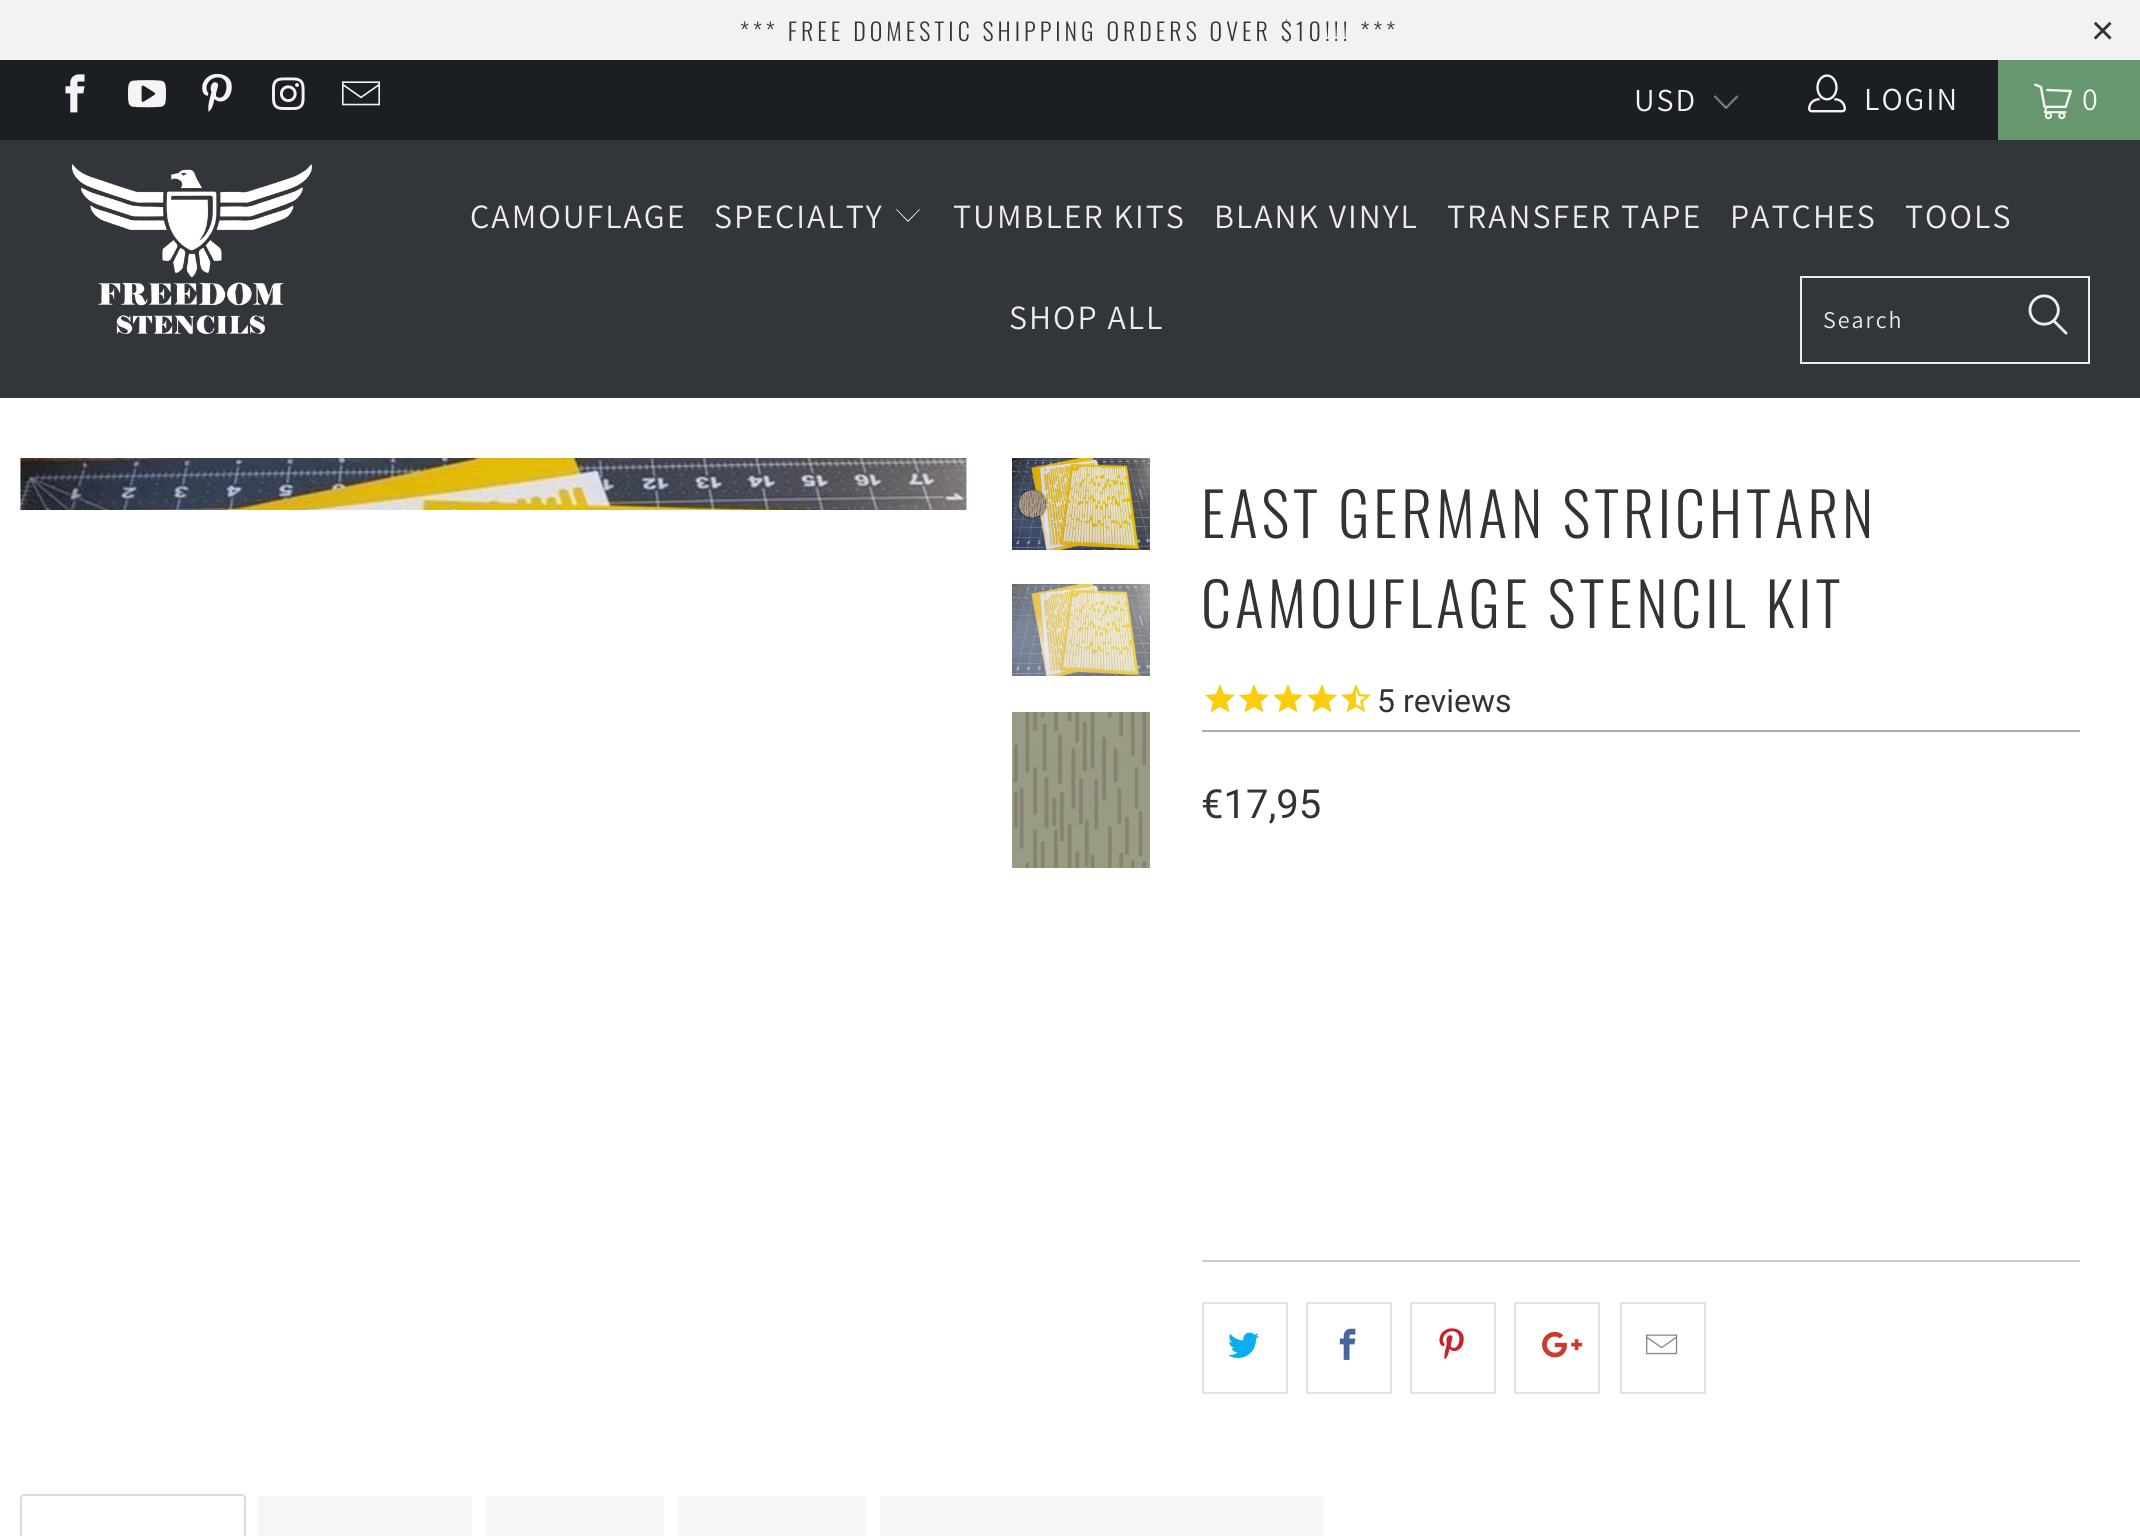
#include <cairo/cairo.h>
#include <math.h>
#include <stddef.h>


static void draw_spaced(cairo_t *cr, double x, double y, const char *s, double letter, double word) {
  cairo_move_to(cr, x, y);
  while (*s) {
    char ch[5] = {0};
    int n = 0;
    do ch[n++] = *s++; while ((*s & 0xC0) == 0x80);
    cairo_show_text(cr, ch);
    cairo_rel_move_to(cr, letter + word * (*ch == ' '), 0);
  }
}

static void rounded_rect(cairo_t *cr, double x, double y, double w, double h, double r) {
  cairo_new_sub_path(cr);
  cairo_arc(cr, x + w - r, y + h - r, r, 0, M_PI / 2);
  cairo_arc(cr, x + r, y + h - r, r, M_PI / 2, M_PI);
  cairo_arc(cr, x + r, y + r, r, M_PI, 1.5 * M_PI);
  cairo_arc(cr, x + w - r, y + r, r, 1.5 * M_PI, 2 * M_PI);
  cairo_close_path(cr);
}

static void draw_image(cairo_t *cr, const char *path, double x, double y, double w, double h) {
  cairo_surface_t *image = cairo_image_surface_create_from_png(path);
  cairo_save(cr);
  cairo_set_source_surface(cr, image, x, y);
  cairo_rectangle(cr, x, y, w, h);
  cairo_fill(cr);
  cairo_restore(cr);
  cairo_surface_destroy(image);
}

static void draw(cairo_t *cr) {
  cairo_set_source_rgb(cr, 1, 1, 1);
  cairo_paint(cr);
  cairo_set_source_rgb(cr, 242 / 255.0, 242 / 255.0, 242 / 255.0);
  cairo_rectangle(cr, 0, 0, 2140, 60);
  cairo_fill(cr);
  cairo_set_source_rgb(cr, 27 / 255.0, 31 / 255.0, 35 / 255.0);
  cairo_rectangle(cr, 0, 60, 1998, 80);
  cairo_fill(cr);
  draw_image(cr, "images/1.png", 65, 74, 20, 39);
  draw_image(cr, "images/2.png", 128, 80, 38, 28);
  draw_image(cr, "images/3.png", 202, 73, 30, 39);
  draw_image(cr, "images/4.png", 272, 77, 33, 33);
  draw_image(cr, "images/5.png", 342, 81, 38, 25);
  draw_image(cr, "images/6.png", 1714, 94, 25, 16);
  draw_image(cr, "images/7.png", 1808, 74, 38, 39);
  cairo_set_source_rgb(cr, 103 / 255.0, 151 / 255.0, 110 / 255.0);
  cairo_rectangle(cr, 1998, 60, 142, 80);
  cairo_fill(cr);
  draw_image(cr, "images/8.png", 2034, 83, 38, 37);
  cairo_set_source_rgb(cr, 50 / 255.0, 53 / 255.0, 57 / 255.0);
  cairo_rectangle(cr, 0, 140, 2140, 258);
  cairo_fill(cr);
  draw_image(cr, "images/9.png", 72, 164, 240, 170);
  cairo_set_source_rgb(cr, 237 / 255.0, 237 / 255.0, 237 / 255.0);
  cairo_new_path(cr);
  cairo_move_to(cr, 908, 222);
  cairo_line_to(cr, 896, 209.5);
  cairo_line_to(cr, 896.5, 209);
  cairo_line_to(cr, 908, 220.5);
  cairo_line_to(cr, 919.5, 209);
  cairo_line_to(cr, 920, 209.5);
  cairo_close_path(cr);
  cairo_fill(cr);
  cairo_rectangle(cr, 1801, 277, 288, 86);
  cairo_stroke(cr);
  draw_image(cr, "images/10.png", 2028, 294, 40, 41);
  draw_image(cr, "images/11.png", 20, 458, 947, 52);
  draw_image(cr, "images/12.png", 1012, 458, 138, 92);
  draw_image(cr, "images/13.png", 1012, 584, 138, 92);
  draw_image(cr, "images/14.png", 1012, 712, 138, 156);
  cairo_set_source_rgb(cr, 252 / 255.0, 205 / 255.0, 15 / 255.0);
  cairo_new_path(cr);
  cairo_move_to(cr, 1220, 707);
  cairo_line_to(cr, 1210.5, 712.5);
  cairo_line_to(cr, 1213, 702);
  cairo_line_to(cr, 1205, 695);
  cairo_line_to(cr, 1216, 694);
  cairo_line_to(cr, 1220, 684);
  cairo_line_to(cr, 1224, 694);
  cairo_line_to(cr, 1235, 695);
  cairo_line_to(cr, 1227, 702);
  cairo_line_to(cr, 1229.5, 712.5);
  cairo_close_path(cr);
  cairo_fill(cr);
  cairo_new_path(cr);
  cairo_move_to(cr, 1254, 707);
  cairo_line_to(cr, 1244.5, 712.5);
  cairo_line_to(cr, 1247, 702);
  cairo_line_to(cr, 1239, 695);
  cairo_line_to(cr, 1250, 694);
  cairo_line_to(cr, 1254, 684);
  cairo_line_to(cr, 1258, 694);
  cairo_line_to(cr, 1269, 695);
  cairo_line_to(cr, 1261, 702);
  cairo_line_to(cr, 1263.5, 712.5);
  cairo_close_path(cr);
  cairo_fill(cr);
  cairo_new_path(cr);
  cairo_move_to(cr, 1288, 707);
  cairo_line_to(cr, 1278.5, 712.5);
  cairo_line_to(cr, 1281, 702);
  cairo_line_to(cr, 1273, 695);
  cairo_line_to(cr, 1284, 694);
  cairo_line_to(cr, 1288, 684);
  cairo_line_to(cr, 1292, 694);
  cairo_line_to(cr, 1303, 695);
  cairo_line_to(cr, 1295, 702);
  cairo_line_to(cr, 1297.5, 712.5);
  cairo_close_path(cr);
  cairo_fill(cr);
  cairo_new_path(cr);
  cairo_move_to(cr, 1322, 707);
  cairo_line_to(cr, 1312.5, 712.5);
  cairo_line_to(cr, 1315, 702);
  cairo_line_to(cr, 1307, 695);
  cairo_line_to(cr, 1318, 694);
  cairo_line_to(cr, 1322, 684);
  cairo_line_to(cr, 1326, 694);
  cairo_line_to(cr, 1337, 695);
  cairo_line_to(cr, 1329, 702);
  cairo_line_to(cr, 1331.5, 712.5);
  cairo_close_path(cr);
  cairo_fill(cr);
  draw_image(cr, "images/15.png", 1341, 684, 30, 29);
  cairo_set_source_rgb(cr, 170 / 255.0, 170 / 255.0, 170 / 255.0);
  cairo_rectangle(cr, 1202, 730, 878, 2);
  cairo_fill(cr);
  cairo_set_source_rgb(cr, 204 / 255.0, 204 / 255.0, 204 / 255.0);
  cairo_rectangle(cr, 1202, 1260, 878, 2);
  cairo_fill(cr);
  cairo_rectangle(cr, 1203, 1303, 84, 90);
  cairo_set_source_rgb(cr, 226 / 255.0, 226 / 255.0, 226 / 255.0);
  cairo_stroke(cr);
  draw_image(cr, "images/16.png", 1228, 1332, 31, 26);
  cairo_rectangle(cr, 1307, 1303, 84, 90);
  cairo_stroke(cr);
  draw_image(cr, "images/17.png", 1339, 1328, 17, 32);
  cairo_rectangle(cr, 1411, 1303, 84, 90);
  cairo_stroke(cr);
  draw_image(cr, "images/18.png", 1439, 1328, 25, 32);
  cairo_rectangle(cr, 1515, 1303, 84, 90);
  cairo_stroke(cr);
  draw_image(cr, "images/19.png", 1542, 1331, 41, 27);
  cairo_rectangle(cr, 1621, 1303, 84, 90);
  cairo_stroke(cr);
  draw_image(cr, "images/20.png", 1646, 1334, 32, 21);
  rounded_rect(cr, 21, 1495, 224, 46, 3);
  cairo_set_source_rgb(cr, 220 / 255.0, 220 / 255.0, 220 / 255.0);
  cairo_stroke(cr);
  cairo_set_source_rgb(cr, 246 / 255.0, 246 / 255.0, 246 / 255.0);
  rounded_rect(cr, 257, 1495, 216, 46, 3);
  cairo_fill_preserve(cr);
  cairo_set_source_rgb(cr, 1, 1, 1);
  cairo_stroke(cr);
  cairo_set_source_rgb(cr, 246 / 255.0, 246 / 255.0, 246 / 255.0);
  rounded_rect(cr, 485, 1495, 180, 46, 3);
  cairo_fill_preserve(cr);
  cairo_set_source_rgb(cr, 1, 1, 1);
  cairo_stroke(cr);
  cairo_set_source_rgb(cr, 246 / 255.0, 246 / 255.0, 246 / 255.0);
  rounded_rect(cr, 677, 1495, 190, 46, 3);
  cairo_fill_preserve(cr);
  cairo_set_source_rgb(cr, 1, 1, 1);
  cairo_stroke(cr);
  cairo_set_source_rgb(cr, 246 / 255.0, 246 / 255.0, 246 / 255.0);
  rounded_rect(cr, 879, 1495, 446, 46, 3);
  cairo_fill_preserve(cr);
  cairo_set_source_rgb(cr, 1, 1, 1);
  cairo_stroke(cr);
  cairo_select_font_face(cr, "Oswald Light", CAIRO_FONT_SLANT_NORMAL, CAIRO_FONT_WEIGHT_NORMAL);
  cairo_set_font_size(cr, 24);
  cairo_set_source_rgb(cr, 51 / 255.0, 51 / 255.0, 51 / 255.0);
  draw_spaced(cr, 740, 41, "*** FREE DOMESTIC SHIPPING ORDERS OVER $10!!! ***", 4, 0);
  cairo_select_font_face(cr, "Liberation Sans", CAIRO_FONT_SLANT_NORMAL, CAIRO_FONT_WEIGHT_NORMAL);
  cairo_set_font_size(cr, 40);
  draw_spaced(cr, 2091, 44, "×", 4, 0);
  cairo_select_font_face(cr, "Assistant", CAIRO_FONT_SLANT_NORMAL, CAIRO_FONT_WEIGHT_NORMAL);
  cairo_set_font_size(cr, 32);
  cairo_set_source_rgb(cr, 244 / 255.0, 244 / 255.0, 244 / 255.0);
  draw_spaced(cr, 1634, 111, "USD", 2, 0);
  draw_spaced(cr, 1864, 110, "LOGIN", 2, 0);
  draw_spaced(cr, 2082, 110, "0", 2, 0);
  cairo_set_font_size(cr, 34);
  cairo_set_source_rgb(cr, 237 / 255.0, 237 / 255.0, 237 / 255.0);
  draw_spaced(cr, 470, 228, "CAMOUFLAGE", 2, 0);
  draw_spaced(cr, 714, 228, "SPECIALTY", 2, 0);
  draw_spaced(cr, 953, 228, "TUMBLER KITS", 2, 0);
  draw_spaced(cr, 1214, 228, "BLANK VINYL", 2, 0);
  draw_spaced(cr, 1447, 228, "TRANSFER TAPE", 2, 0);
  draw_spaced(cr, 1730, 228, "PATCHES", 2, 0);
  draw_spaced(cr, 1905, 228, "TOOLS", 2, 0);
  draw_spaced(cr, 1009, 329, "SHOP ALL", 2, 0);
  cairo_set_font_size(cr, 24);
  draw_spaced(cr, 1823, 328, "Search", 2, 0);
  cairo_select_font_face(cr, "Oswald Light", CAIRO_FONT_SLANT_NORMAL, CAIRO_FONT_WEIGHT_NORMAL);
  cairo_set_font_size(cr, 60);
  cairo_set_source_rgb(cr, 51 / 255.0, 51 / 255.0, 51 / 255.0);
  draw_spaced(cr, 1201, 538, "EAST GERMAN STRICHTARN", 4, 0);
  draw_spaced(cr, 1201, 628, "CAMOUFLAGE STENCIL KIT", 4, 0);
  cairo_select_font_face(cr, "Roboto", CAIRO_FONT_SLANT_NORMAL, CAIRO_FONT_WEIGHT_NORMAL);
  cairo_set_font_size(cr, 32);
  cairo_move_to(cr, 1377, 712);
  cairo_show_text(cr, "5 reviews");
  cairo_set_font_size(cr, 40);
  cairo_move_to(cr, 1201, 818);
  cairo_show_text(cr, "€17,95");
}

int main(void) {
  cairo_surface_t *surface = cairo_image_surface_create(CAIRO_FORMAT_RGB24, 2140, 1536);
  cairo_t *cr = cairo_create(surface);
  cairo_font_options_t *options = cairo_font_options_create();
  cairo_font_options_set_hint_metrics(options, CAIRO_HINT_METRICS_OFF);
  cairo_font_options_set_hint_style(options, CAIRO_HINT_STYLE_NONE);
  cairo_set_font_options(cr, options);
  cairo_set_miter_limit(cr, 4);
  draw(cr);
  cairo_surface_write_to_png(surface, "out.png");
  cairo_font_options_destroy(options);
  cairo_destroy(cr);
  cairo_surface_destroy(surface);
  return 0;
}
